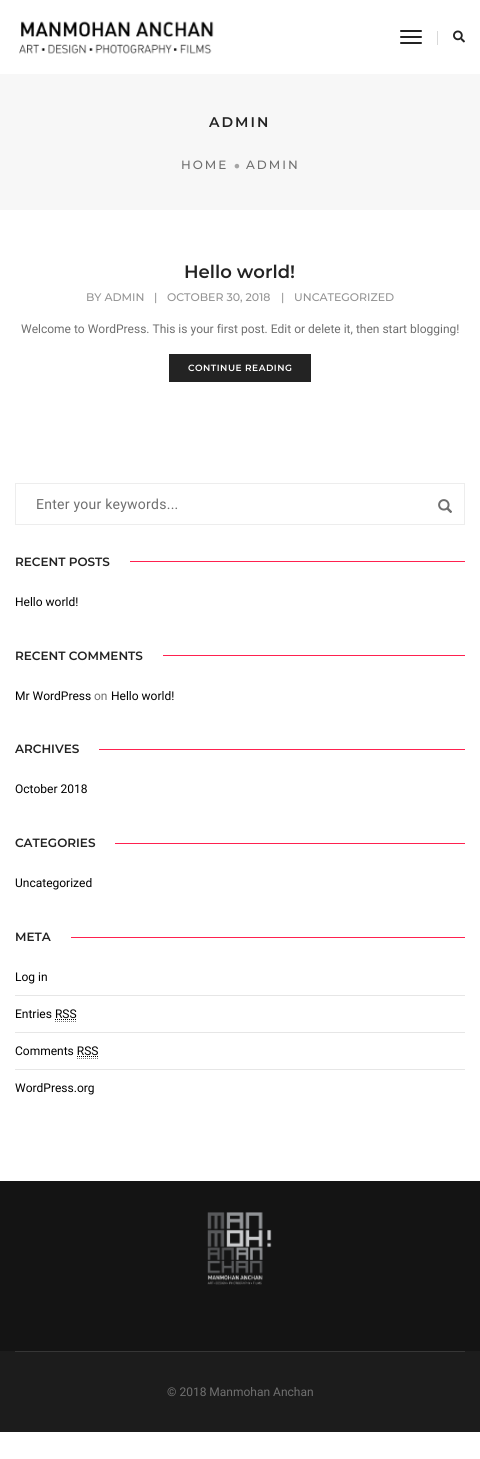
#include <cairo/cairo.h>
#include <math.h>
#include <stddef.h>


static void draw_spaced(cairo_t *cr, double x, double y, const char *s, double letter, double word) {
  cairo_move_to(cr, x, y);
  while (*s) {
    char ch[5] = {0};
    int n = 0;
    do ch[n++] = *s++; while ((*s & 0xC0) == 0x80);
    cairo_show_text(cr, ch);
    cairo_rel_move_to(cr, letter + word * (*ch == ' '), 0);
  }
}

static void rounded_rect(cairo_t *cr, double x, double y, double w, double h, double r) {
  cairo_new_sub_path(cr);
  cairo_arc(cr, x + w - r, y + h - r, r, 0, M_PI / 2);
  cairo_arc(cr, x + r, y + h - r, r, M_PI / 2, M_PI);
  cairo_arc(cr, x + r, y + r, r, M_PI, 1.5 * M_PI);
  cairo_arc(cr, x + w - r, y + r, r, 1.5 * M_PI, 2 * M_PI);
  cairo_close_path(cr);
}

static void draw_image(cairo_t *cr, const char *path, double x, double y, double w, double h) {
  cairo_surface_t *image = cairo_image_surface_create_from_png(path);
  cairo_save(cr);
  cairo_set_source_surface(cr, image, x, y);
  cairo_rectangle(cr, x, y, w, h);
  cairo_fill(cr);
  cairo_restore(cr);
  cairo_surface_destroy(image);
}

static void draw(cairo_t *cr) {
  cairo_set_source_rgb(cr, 1, 1, 1);
  cairo_paint(cr);
  draw_image(cr, "images/1.png", 19, 21, 195, 33);
  cairo_set_source_rgb(cr, 35 / 255.0, 35 / 255.0, 35 / 255.0);
  rounded_rect(cr, 400, 30, 22, 2, 1);
  cairo_fill(cr);
  rounded_rect(cr, 400, 36, 22, 2, 1);
  cairo_fill(cr);
  rounded_rect(cr, 400, 42, 22, 2, 1);
  cairo_fill(cr);
  cairo_set_source_rgb(cr, 217 / 255.0, 217 / 255.0, 217 / 255.0);
  cairo_rectangle(cr, 437, 31, 1, 14);
  cairo_fill(cr);
  draw_image(cr, "images/2.png", 453, 30, 12, 13);
  cairo_set_source_rgb(cr, 247 / 255.0, 247 / 255.0, 247 / 255.0);
  cairo_rectangle(cr, 0, 74, 480, 136);
  cairo_fill(cr);
  cairo_set_source_rgb(cr, 35 / 255.0, 35 / 255.0, 35 / 255.0);
  cairo_rectangle(cr, 169, 354, 142, 28);
  cairo_fill(cr);
  cairo_rectangle(cr, 15.5, 483.5, 449, 41);
  cairo_set_source_rgb(cr, 237 / 255.0, 237 / 255.0, 237 / 255.0);
  cairo_set_line_width(cr, 1);
  cairo_stroke(cr);
  draw_image(cr, "images/3.png", 438, 499, 14, 14);
  cairo_set_source_rgb(cr, 1, 33 / 255.0, 79 / 255.0);
  cairo_rectangle(cr, 130, 561, 335, 1);
  cairo_fill(cr);
  cairo_rectangle(cr, 163, 655, 302, 1);
  cairo_fill(cr);
  cairo_rectangle(cr, 99, 749, 366, 1);
  cairo_fill(cr);
  cairo_rectangle(cr, 115, 843, 350, 1);
  cairo_fill(cr);
  cairo_rectangle(cr, 71, 937, 394, 1);
  cairo_fill(cr);
  cairo_set_source_rgb(cr, 230 / 255.0, 230 / 255.0, 230 / 255.0);
  cairo_rectangle(cr, 15, 995, 450, 1);
  cairo_fill(cr);
  cairo_rectangle(cr, 15, 1032, 450, 1);
  cairo_fill(cr);
  cairo_new_path(cr);
  cairo_move_to(cr, 55, 1021.5);
  cairo_line_to(cr, 77, 1021.5);
  cairo_set_source_rgb(cr, 119 / 255.0, 119 / 255.0, 119 / 255.0);
  cairo_set_dash(cr, (double[]){1, 1}, 2, 0);
  cairo_stroke(cr);
  cairo_new_path(cr);
  cairo_move_to(cr, 55, 1019.5);
  cairo_line_to(cr, 76.5, 1019.5);
  cairo_set_source_rgb(cr, 0, 0, 0);
  cairo_stroke(cr);
  cairo_set_source_rgb(cr, 230 / 255.0, 230 / 255.0, 230 / 255.0);
  cairo_rectangle(cr, 15, 1069, 450, 1);
  cairo_fill(cr);
  cairo_new_path(cr);
  cairo_move_to(cr, 77, 1058.5);
  cairo_line_to(cr, 98, 1058.5);
  cairo_set_source_rgb(cr, 119 / 255.0, 119 / 255.0, 119 / 255.0);
  cairo_stroke(cr);
  cairo_new_path(cr);
  cairo_move_to(cr, 77, 1056.5);
  cairo_line_to(cr, 98.5, 1056.5);
  cairo_set_source_rgb(cr, 0, 0, 0);
  cairo_stroke(cr);
  cairo_set_source_rgb(cr, 28 / 255.0, 28 / 255.0, 28 / 255.0);
  cairo_rectangle(cr, 0, 1351, 480, 81);
  cairo_fill(cr);
  cairo_set_source_rgb(cr, 20 / 255.0, 20 / 255.0, 20 / 255.0);
  cairo_rectangle(cr, 0, 1181, 480, 170);
  cairo_fill(cr);
  draw_image(cr, "images/4.png", 207, 1212, 65, 73);
  cairo_set_source_rgb(cr, 54 / 255.0, 54 / 255.0, 54 / 255.0);
  cairo_rectangle(cr, 15, 1351, 450, 1);
  cairo_fill(cr);
  cairo_select_font_face(cr, "Montserrat SemiBold", CAIRO_FONT_SLANT_NORMAL, CAIRO_FONT_WEIGHT_NORMAL);
  cairo_set_font_size(cr, 14);
  cairo_set_source_rgb(cr, 35 / 255.0, 35 / 255.0, 35 / 255.0);
  draw_spaced(cr, 209, 127, "ADMIN", 2, 0);
  cairo_select_font_face(cr, "Montserrat Medium", CAIRO_FONT_SLANT_NORMAL, CAIRO_FONT_WEIGHT_NORMAL);
  cairo_set_font_size(cr, 12);
  cairo_set_source_rgb(cr, 111 / 255.0, 111 / 255.0, 111 / 255.0);
  draw_spaced(cr, 181, 169, "HOME", 2, 0);
  cairo_set_font_size(cr, 25);
  cairo_set_source_rgb(cr, 165 / 255.0, 165 / 255.0, 165 / 255.0);
  draw_spaced(cr, 233, 173, "•", 2, 0);
  cairo_set_font_size(cr, 12);
  cairo_set_source_rgb(cr, 111 / 255.0, 111 / 255.0, 111 / 255.0);
  draw_spaced(cr, 246, 169, "ADMIN", 2, 0);
  cairo_select_font_face(cr, "Montserrat SemiBold", CAIRO_FONT_SLANT_NORMAL, CAIRO_FONT_WEIGHT_NORMAL);
  cairo_set_font_size(cr, 18);
  cairo_set_source_rgb(cr, 35 / 255.0, 35 / 255.0, 35 / 255.0);
  cairo_move_to(cr, 184, 278);
  cairo_show_text(cr, "Hello world!");
  cairo_select_font_face(cr, "Montserrat Medium", CAIRO_FONT_SLANT_NORMAL, CAIRO_FONT_WEIGHT_NORMAL);
  cairo_set_font_size(cr, 11);
  cairo_set_source_rgb(cr, 147 / 255.0, 147 / 255.0, 147 / 255.0);
  cairo_move_to(cr, 86, 301);
  cairo_show_text(cr, "BY ADMIN");
  cairo_move_to(cr, 154, 301);
  cairo_show_text(cr, "|");
  cairo_move_to(cr, 167, 301);
  cairo_show_text(cr, "OCTOBER 30, 2018");
  cairo_move_to(cr, 281, 301);
  cairo_show_text(cr, "|");
  cairo_move_to(cr, 294, 301);
  cairo_show_text(cr, "UNCATEGORIZED");
  cairo_select_font_face(cr, "Roboto", CAIRO_FONT_SLANT_NORMAL, CAIRO_FONT_WEIGHT_NORMAL);
  cairo_set_font_size(cr, 12);
  cairo_set_source_rgb(cr, 111 / 255.0, 111 / 255.0, 111 / 255.0);
  cairo_move_to(cr, 21, 333);
  cairo_show_text(cr, "Welcome to WordPress. This is your first post. Edit or delete it, then start blogging!");
  cairo_select_font_face(cr, "Montserrat SemiBold", CAIRO_FONT_SLANT_NORMAL, CAIRO_FONT_WEIGHT_NORMAL);
  cairo_set_font_size(cr, 9);
  cairo_set_source_rgb(cr, 1, 1, 1);
  draw_spaced(cr, 188, 371, "CONTINUE READING", 0.5, 0);
  cairo_select_font_face(cr, "Roboto", CAIRO_FONT_SLANT_NORMAL, CAIRO_FONT_WEIGHT_NORMAL);
  cairo_set_font_size(cr, 14);
  cairo_set_source_rgb(cr, 111 / 255.0, 111 / 255.0, 111 / 255.0);
  draw_spaced(cr, 36, 509, "Enter your keywords...", 0.25, 0);
  cairo_select_font_face(cr, "Montserrat SemiBold", CAIRO_FONT_SLANT_NORMAL, CAIRO_FONT_WEIGHT_NORMAL);
  cairo_set_font_size(cr, 12);
  cairo_set_source_rgb(cr, 35 / 255.0, 35 / 255.0, 35 / 255.0);
  cairo_move_to(cr, 15, 566);
  cairo_show_text(cr, "RECENT POSTS");
  cairo_select_font_face(cr, "Roboto", CAIRO_FONT_SLANT_NORMAL, CAIRO_FONT_WEIGHT_NORMAL);
  cairo_set_source_rgb(cr, 0, 0, 0);
  cairo_move_to(cr, 15, 606);
  cairo_show_text(cr, "Hello world!");
  cairo_select_font_face(cr, "Montserrat SemiBold", CAIRO_FONT_SLANT_NORMAL, CAIRO_FONT_WEIGHT_NORMAL);
  cairo_set_source_rgb(cr, 35 / 255.0, 35 / 255.0, 35 / 255.0);
  cairo_move_to(cr, 15, 660);
  cairo_show_text(cr, "RECENT COMMENTS");
  cairo_select_font_face(cr, "Roboto", CAIRO_FONT_SLANT_NORMAL, CAIRO_FONT_WEIGHT_NORMAL);
  cairo_set_source_rgb(cr, 0, 0, 0);
  cairo_move_to(cr, 15, 700);
  cairo_show_text(cr, "Mr WordPress");
  cairo_set_source_rgb(cr, 111 / 255.0, 111 / 255.0, 111 / 255.0);
  cairo_move_to(cr, 94, 700);
  cairo_show_text(cr, "on");
  cairo_set_source_rgb(cr, 0, 0, 0);
  cairo_move_to(cr, 111, 700);
  cairo_show_text(cr, "Hello world!");
  cairo_select_font_face(cr, "Montserrat SemiBold", CAIRO_FONT_SLANT_NORMAL, CAIRO_FONT_WEIGHT_NORMAL);
  cairo_set_source_rgb(cr, 35 / 255.0, 35 / 255.0, 35 / 255.0);
  cairo_move_to(cr, 15, 753);
  cairo_show_text(cr, "ARCHIVES");
  cairo_select_font_face(cr, "Roboto", CAIRO_FONT_SLANT_NORMAL, CAIRO_FONT_WEIGHT_NORMAL);
  cairo_set_source_rgb(cr, 0, 0, 0);
  cairo_move_to(cr, 15, 793);
  cairo_show_text(cr, "October 2018");
  cairo_select_font_face(cr, "Montserrat SemiBold", CAIRO_FONT_SLANT_NORMAL, CAIRO_FONT_WEIGHT_NORMAL);
  cairo_set_source_rgb(cr, 35 / 255.0, 35 / 255.0, 35 / 255.0);
  cairo_move_to(cr, 15, 847);
  cairo_show_text(cr, "CATEGORIES");
  cairo_select_font_face(cr, "Roboto", CAIRO_FONT_SLANT_NORMAL, CAIRO_FONT_WEIGHT_NORMAL);
  cairo_set_source_rgb(cr, 0, 0, 0);
  cairo_move_to(cr, 15, 887);
  cairo_show_text(cr, "Uncategorized");
  cairo_select_font_face(cr, "Montserrat SemiBold", CAIRO_FONT_SLANT_NORMAL, CAIRO_FONT_WEIGHT_NORMAL);
  cairo_set_source_rgb(cr, 35 / 255.0, 35 / 255.0, 35 / 255.0);
  cairo_move_to(cr, 15, 941);
  cairo_show_text(cr, "META");
  cairo_select_font_face(cr, "Roboto", CAIRO_FONT_SLANT_NORMAL, CAIRO_FONT_WEIGHT_NORMAL);
  cairo_set_source_rgb(cr, 0, 0, 0);
  cairo_move_to(cr, 15, 981);
  cairo_show_text(cr, "Log in");
  cairo_move_to(cr, 15, 1018);
  cairo_show_text(cr, "Entries RSS");
  cairo_move_to(cr, 15, 1055);
  cairo_show_text(cr, "Comments RSS");
  cairo_move_to(cr, 15, 1092);
  cairo_show_text(cr, "WordPress.org");
  cairo_set_source_rgb(cr, 111 / 255.0, 111 / 255.0, 111 / 255.0);
  cairo_move_to(cr, 167, 1396);
  cairo_show_text(cr, "© 2018 Manmohan Anchan");
}

int main(void) {
  cairo_surface_t *surface = cairo_image_surface_create(CAIRO_FORMAT_RGB24, 480, 1459);
  cairo_t *cr = cairo_create(surface);
  cairo_font_options_t *options = cairo_font_options_create();
  cairo_font_options_set_hint_metrics(options, CAIRO_HINT_METRICS_OFF);
  cairo_font_options_set_hint_style(options, CAIRO_HINT_STYLE_NONE);
  cairo_set_font_options(cr, options);
  cairo_set_miter_limit(cr, 4);
  draw(cr);
  cairo_surface_write_to_png(surface, "out.png");
  cairo_font_options_destroy(options);
  cairo_destroy(cr);
  cairo_surface_destroy(surface);
  return 0;
}
